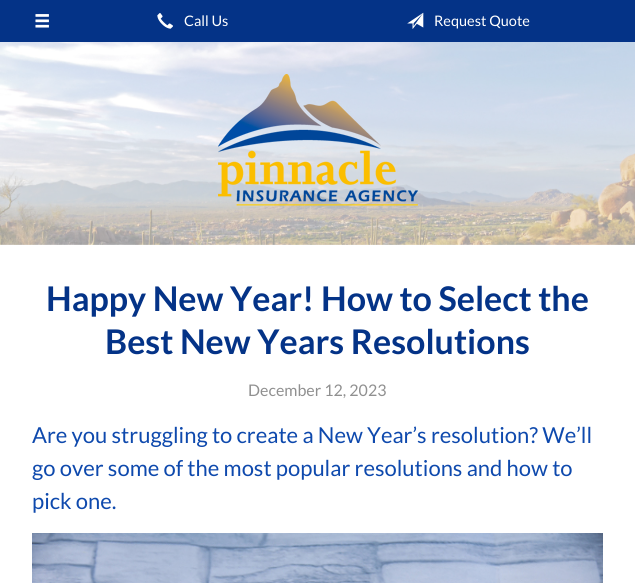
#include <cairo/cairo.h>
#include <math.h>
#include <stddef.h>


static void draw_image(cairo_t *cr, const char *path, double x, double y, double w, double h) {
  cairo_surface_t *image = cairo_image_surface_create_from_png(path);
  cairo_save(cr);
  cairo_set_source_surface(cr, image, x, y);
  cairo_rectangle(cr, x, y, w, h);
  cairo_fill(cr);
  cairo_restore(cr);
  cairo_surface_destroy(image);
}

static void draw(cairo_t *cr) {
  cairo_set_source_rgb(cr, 1, 1, 1);
  cairo_paint(cr);
  cairo_set_source_rgb(cr, 4 / 255.0, 51 / 255.0, 135 / 255.0);
  cairo_rectangle(cr, 0, 0, 635, 42);
  cairo_fill(cr);
  draw_image(cr, "images/1.png", 35, 14, 14, 14);
  draw_image(cr, "images/2.png", 157, 13, 16, 16);
  draw_image(cr, "images/3.png", 407, 12, 17, 17);
  draw_image(cr, "images/4.png", 0, 42, 635, 203);
  draw_image(cr, "images/5.png", 218, 74, 200, 132);
  draw_image(cr, "images/6.png", 32, 533, 571, 50);
  cairo_select_font_face(cr, "Lato", CAIRO_FONT_SLANT_NORMAL, CAIRO_FONT_WEIGHT_NORMAL);
  cairo_set_font_size(cr, 14.5);
  cairo_set_source_rgb(cr, 1, 1, 1);
  cairo_move_to(cr, 184, 26);
  cairo_show_text(cr, "Call Us");
  cairo_move_to(cr, 434, 26);
  cairo_show_text(cr, "Request Quote");
  cairo_select_font_face(cr, "Lato", CAIRO_FONT_SLANT_NORMAL, CAIRO_FONT_WEIGHT_BOLD);
  cairo_set_font_size(cr, 34);
  cairo_set_source_rgb(cr, 4 / 255.0, 51 / 255.0, 135 / 255.0);
  cairo_move_to(cr, 46, 311);
  cairo_show_text(cr, "Happy New Year! How to Select the");
  cairo_move_to(cr, 105, 354);
  cairo_show_text(cr, "Best New Years Resolutions");
  cairo_select_font_face(cr, "Lato", CAIRO_FONT_SLANT_NORMAL, CAIRO_FONT_WEIGHT_NORMAL);
  cairo_set_font_size(cr, 16);
  cairo_set_source_rgb(cr, 144 / 255.0, 144 / 255.0, 144 / 255.0);
  cairo_move_to(cr, 248, 396);
  cairo_show_text(cr, "December 12, 2023");
  cairo_set_font_size(cr, 22);
  cairo_set_source_rgb(cr, 14 / 255.0, 73 / 255.0, 173 / 255.0);
  cairo_move_to(cr, 32, 443);
  cairo_show_text(cr, "Are you struggling to create a New Year’s resolution? We’ll");
  cairo_move_to(cr, 32, 476);
  cairo_show_text(cr, "go over some of the most popular resolutions and how to");
  cairo_move_to(cr, 32, 509);
  cairo_show_text(cr, "pick one.");
}

int main(void) {
  cairo_surface_t *surface = cairo_image_surface_create(CAIRO_FORMAT_RGB24, 635, 583);
  cairo_t *cr = cairo_create(surface);
  cairo_font_options_t *options = cairo_font_options_create();
  cairo_font_options_set_hint_metrics(options, CAIRO_HINT_METRICS_OFF);
  cairo_font_options_set_hint_style(options, CAIRO_HINT_STYLE_NONE);
  cairo_set_font_options(cr, options);
  cairo_set_miter_limit(cr, 4);
  draw(cr);
  cairo_surface_write_to_png(surface, "out.png");
  cairo_font_options_destroy(options);
  cairo_destroy(cr);
  cairo_surface_destroy(surface);
  return 0;
}
